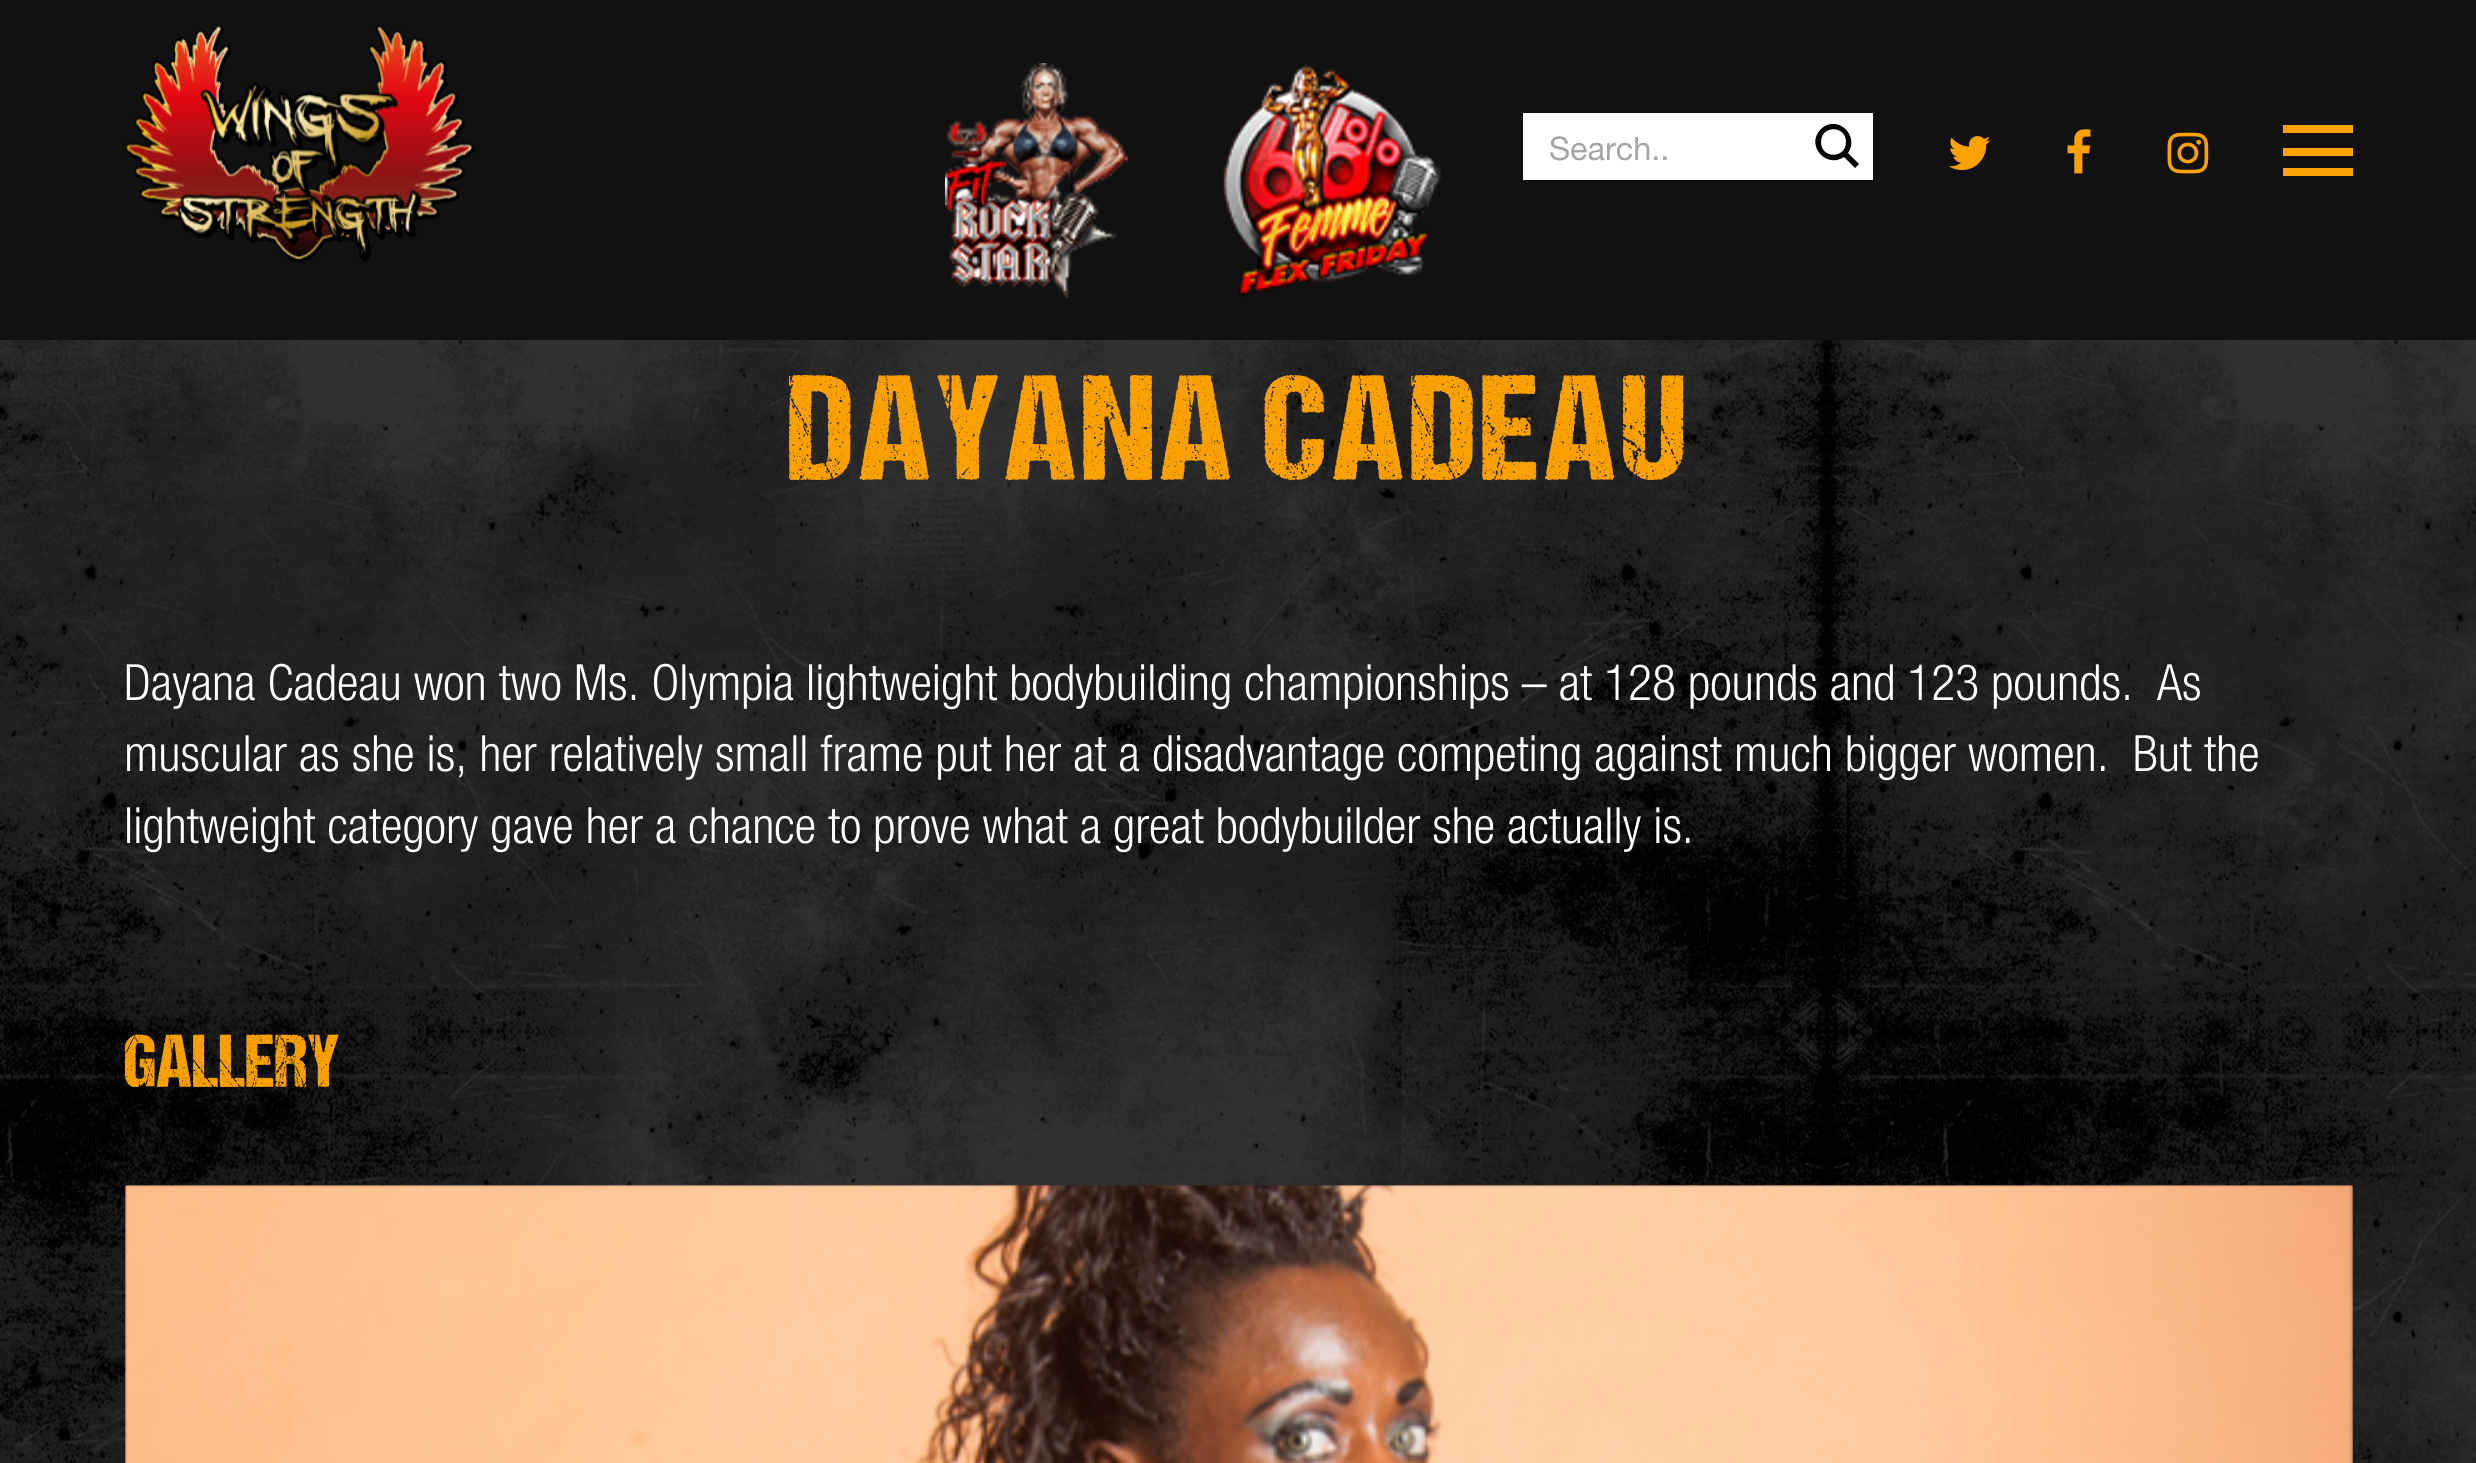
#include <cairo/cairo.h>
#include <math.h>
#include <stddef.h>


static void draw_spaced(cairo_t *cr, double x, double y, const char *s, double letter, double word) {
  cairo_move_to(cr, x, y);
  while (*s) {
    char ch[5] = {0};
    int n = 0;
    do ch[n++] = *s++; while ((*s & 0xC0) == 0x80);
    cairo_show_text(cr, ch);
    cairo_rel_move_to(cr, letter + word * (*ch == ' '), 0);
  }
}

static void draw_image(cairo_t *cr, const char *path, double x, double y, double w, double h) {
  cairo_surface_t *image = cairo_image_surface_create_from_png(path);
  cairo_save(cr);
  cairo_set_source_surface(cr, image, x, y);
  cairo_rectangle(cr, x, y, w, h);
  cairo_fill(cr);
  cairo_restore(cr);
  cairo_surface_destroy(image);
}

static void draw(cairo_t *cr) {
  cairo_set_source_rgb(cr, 1, 1, 1);
  cairo_paint(cr);
  cairo_set_source_rgb(cr, 17 / 255.0, 17 / 255.0, 17 / 255.0);
  cairo_rectangle(cr, 0, 0, 2476, 340);
  cairo_fill(cr);
  draw_image(cr, "images/1.png", 125, 25, 350, 238);
  draw_image(cr, "images/2.png", 945, 63, 183, 235);
  draw_image(cr, "images/3.png", 1223, 64, 218, 234);
  cairo_set_source_rgb(cr, 1, 1, 1);
  cairo_rectangle(cr, 1523, 113, 350, 67);
  cairo_fill(cr);
  cairo_set_source_rgb(cr, 0, 0, 0);
  cairo_new_path(cr);
  cairo_move_to(cr, 1859, 164);
  cairo_line_to(cr, 1848, 153);
  cairo_curve_to(cr, 1860, 135, 1837, 114, 1821, 129);
  cairo_curve_to(cr, 1805, 145, 1826, 169, 1844, 157);
  cairo_line_to(cr, 1855, 168);
  cairo_close_path(cr);
  cairo_move_to(cr, 1821, 142);
  cairo_curve_to(cr, 1821, 125, 1846, 125, 1846, 142);
  cairo_curve_to(cr, 1846, 159, 1821, 159, 1821, 142);
  cairo_close_path(cr);
  cairo_fill(cr);
  draw_image(cr, "images/4.png", 1948, 136, 43, 34);
  draw_image(cr, "images/5.png", 2067, 129, 24, 45);
  draw_image(cr, "images/6.png", 2167, 132, 42, 42);
  cairo_set_source_rgb(cr, 251 / 255.0, 161 / 255.0, 1 / 255.0);
  cairo_rectangle(cr, 2283, 125, 70, 8);
  cairo_fill(cr);
  cairo_rectangle(cr, 2283, 148, 70, 8);
  cairo_fill(cr);
  cairo_rectangle(cr, 2283, 168, 70, 8);
  cairo_fill(cr);
  draw_image(cr, "images/7.png", 0, 340, 2476, 273);
  draw_image(cr, "images/8.png", 0, 613, 2476, 314);
  draw_image(cr, "images/9.png", 0, 927, 2476, 536);
  draw_image(cr, "images/10.png", 125, 1185, 2228, 278);
  cairo_select_font_face(cr, "Helvetica Neue", CAIRO_FONT_SLANT_NORMAL, CAIRO_FONT_WEIGHT_NORMAL);
  cairo_set_font_size(cr, 32.5);
  cairo_set_source_rgb(cr, 168 / 255.0, 165 / 255.0, 165 / 255.0);
  cairo_move_to(cr, 1549, 160);
  cairo_show_text(cr, "Search..");
  cairo_select_font_face(cr, "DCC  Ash", CAIRO_FONT_SLANT_NORMAL, CAIRO_FONT_WEIGHT_NORMAL);
  cairo_set_font_size(cr, 150);
  cairo_set_source_rgb(cr, 251 / 255.0, 161 / 255.0, 1 / 255.0);
  draw_spaced(cr, 787, 480, "DAYANA CADEAU", 5, 0);
  cairo_select_font_face(cr, "Helvetica Neue Light", CAIRO_FONT_SLANT_NORMAL, CAIRO_FONT_WEIGHT_NORMAL);
  cairo_set_font_size(cr, 50);
  cairo_set_source_rgb(cr, 1, 1, 1);
  cairo_move_to(cr, 124, 700);
  cairo_show_text(cr, "Dayana Cadeau won two Ms. Olympia lightweight bodybuilding championships – at 128 pounds and 123 pounds.  As");
  cairo_move_to(cr, 124, 771);
  cairo_show_text(cr, "muscular as she is, her relatively small frame put her at a disadvantage competing against much bigger women.  But the");
  cairo_move_to(cr, 124, 843);
  cairo_show_text(cr, "lightweight category gave her a chance to prove what a great bodybuilder she actually is.");
  cairo_select_font_face(cr, "DCC  Ash", CAIRO_FONT_SLANT_NORMAL, CAIRO_FONT_WEIGHT_NORMAL);
  cairo_set_font_size(cr, 75);
  cairo_set_source_rgb(cr, 251 / 255.0, 161 / 255.0, 1 / 255.0);
  cairo_move_to(cr, 124, 1087);
  cairo_show_text(cr, "GALLERY");
}

int main(void) {
  cairo_surface_t *surface = cairo_image_surface_create(CAIRO_FORMAT_RGB24, 2476, 1463);
  cairo_t *cr = cairo_create(surface);
  cairo_font_options_t *options = cairo_font_options_create();
  cairo_font_options_set_hint_metrics(options, CAIRO_HINT_METRICS_OFF);
  cairo_font_options_set_hint_style(options, CAIRO_HINT_STYLE_NONE);
  cairo_set_font_options(cr, options);
  cairo_set_miter_limit(cr, 4);
  draw(cr);
  cairo_surface_write_to_png(surface, "out.png");
  cairo_font_options_destroy(options);
  cairo_destroy(cr);
  cairo_surface_destroy(surface);
  return 0;
}
